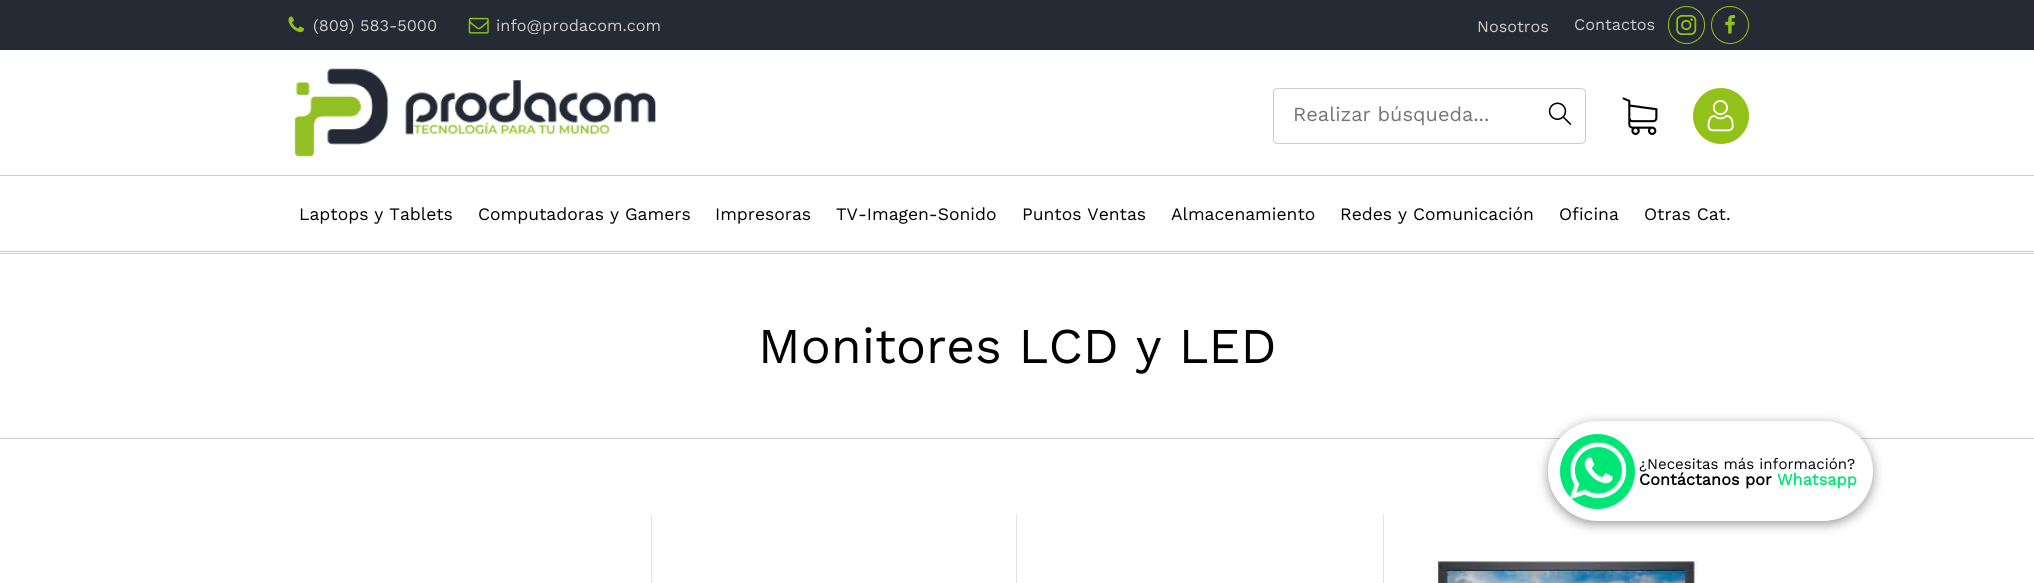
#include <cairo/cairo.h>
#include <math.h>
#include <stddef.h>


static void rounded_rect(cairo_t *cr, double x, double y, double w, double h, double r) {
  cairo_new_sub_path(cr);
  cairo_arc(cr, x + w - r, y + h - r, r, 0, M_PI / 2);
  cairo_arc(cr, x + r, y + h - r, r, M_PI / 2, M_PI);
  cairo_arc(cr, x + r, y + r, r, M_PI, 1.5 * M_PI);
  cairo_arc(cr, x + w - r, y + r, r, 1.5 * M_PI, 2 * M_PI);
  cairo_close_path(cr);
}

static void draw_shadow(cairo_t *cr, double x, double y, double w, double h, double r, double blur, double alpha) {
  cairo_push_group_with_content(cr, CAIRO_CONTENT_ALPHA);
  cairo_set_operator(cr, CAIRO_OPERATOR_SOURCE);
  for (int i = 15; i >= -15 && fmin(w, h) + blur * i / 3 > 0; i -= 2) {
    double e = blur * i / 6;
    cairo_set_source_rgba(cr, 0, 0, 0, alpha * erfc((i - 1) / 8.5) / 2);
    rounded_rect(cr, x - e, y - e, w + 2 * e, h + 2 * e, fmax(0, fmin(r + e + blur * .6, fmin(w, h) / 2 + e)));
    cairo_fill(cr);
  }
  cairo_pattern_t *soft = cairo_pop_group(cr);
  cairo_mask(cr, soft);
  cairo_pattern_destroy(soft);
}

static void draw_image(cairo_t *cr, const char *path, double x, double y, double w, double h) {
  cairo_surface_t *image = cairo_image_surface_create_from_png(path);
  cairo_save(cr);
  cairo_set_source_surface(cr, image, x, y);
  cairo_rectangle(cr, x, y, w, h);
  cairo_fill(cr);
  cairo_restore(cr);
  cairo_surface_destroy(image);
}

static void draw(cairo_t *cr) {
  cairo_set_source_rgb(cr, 1, 1, 1);
  cairo_paint(cr);
  cairo_set_source_rgb(cr, 36 / 255.0, 43 / 255.0, 53 / 255.0);
  cairo_rectangle(cr, 0, 0, 2034, 50);
  cairo_fill(cr);
  draw_image(cr, "images/1.png", 288, 16, 17, 17);
  draw_image(cr, "images/2.png", 468, 17, 21, 17);
  rounded_rect(cr, 1668.5, 6.5, 36, 37, 18);
  cairo_set_source_rgb(cr, 146 / 255.0, 194 / 255.0, 25 / 255.0);
  cairo_set_line_width(cr, 1);
  cairo_stroke(cr);
  draw_image(cr, "images/3.png", 1676, 15, 21, 20);
  cairo_arc(cr, 1730, 25, 18.5, 0, 2 * M_PI);
  cairo_stroke(cr);
  draw_image(cr, "images/4.png", 1725, 15, 10, 19);
  cairo_set_source_rgb(cr, 204 / 255.0, 204 / 255.0, 204 / 255.0);
  cairo_rectangle(cr, 0, 175, 2034, 1);
  cairo_fill(cr);
  draw_image(cr, "images/5.png", 294, 68, 362, 89);
  rounded_rect(cr, 1273.5, 88.5, 312, 55, 4.5);
  cairo_stroke(cr);
  cairo_set_source_rgb(cr, 1, 1, 1);
  rounded_rect(cr, 1535, 89, 50, 50, 5);
  cairo_fill(cr);
  draw_image(cr, "images/6.png", 1548, 102, 24, 23);
  draw_image(cr, "images/7.png", 1622, 97, 36, 38);
  cairo_set_source_rgb(cr, 146 / 255.0, 194 / 255.0, 25 / 255.0);
  cairo_arc(cr, 1721, 116, 28, 0, 2 * M_PI);
  cairo_fill(cr);
  draw_image(cr, "images/8.png", 1707, 100, 27, 32);
  cairo_set_source_rgb(cr, 204 / 255.0, 204 / 255.0, 204 / 255.0);
  cairo_rectangle(cr, 0, 251, 2034, 1);
  cairo_fill(cr);
  cairo_rectangle(cr, 0, 253, 2034, 1);
  cairo_fill(cr);
  cairo_rectangle(cr, 0, 438, 2034, 1);
  cairo_fill(cr);
  cairo_set_source_rgb(cr, 0, 0, 0);
  draw_shadow(cr, 1548, 424, 325, 100, 50, 5.5, 0.4);
  cairo_set_source_rgb(cr, 1, 1, 1);
  rounded_rect(cr, 1548, 421, 325, 100, 50);
  cairo_fill(cr);
  cairo_set_source_rgb(cr, 0, 230 / 255.0, 118 / 255.0);
  cairo_arc(cr, 1597.5, 471.5, 37.5, 0, 2 * M_PI);
  cairo_fill(cr);
  draw_image(cr, "images/9.png", 1570, 442, 57, 57);
  cairo_set_source_rgb(cr, 228 / 255.0, 228 / 255.0, 228 / 255.0);
  cairo_rectangle(cr, 651, 514, 1, 69);
  cairo_fill(cr);
  cairo_rectangle(cr, 1016, 514, 1, 69);
  cairo_fill(cr);
  cairo_rectangle(cr, 1383, 514, 1, 69);
  cairo_fill(cr);
  draw_image(cr, "images/10.png", 1434, 561, 264, 22);
  cairo_select_font_face(cr, "Work Sans", CAIRO_FONT_SLANT_NORMAL, CAIRO_FONT_WEIGHT_NORMAL);
  cairo_set_font_size(cr, 16.25);
  cairo_set_source_rgb(cr, 204 / 255.0, 204 / 255.0, 204 / 255.0);
  cairo_move_to(cr, 313, 31);
  cairo_show_text(cr, "(809) 583-5000");
  cairo_move_to(cr, 496, 31);
  cairo_show_text(cr, "info@prodacom.com");
  cairo_move_to(cr, 1477, 32);
  cairo_show_text(cr, "Nosotros");
  cairo_move_to(cr, 1574, 30);
  cairo_show_text(cr, "Contactos");
  cairo_set_font_size(cr, 20);
  cairo_set_source_rgb(cr, 117 / 255.0, 117 / 255.0, 117 / 255.0);
  cairo_move_to(cr, 1293, 121);
  cairo_show_text(cr, "Realizar búsqueda...");
  cairo_set_font_size(cr, 17.5);
  cairo_set_source_rgb(cr, 0, 0, 0);
  cairo_move_to(cr, 299, 220);
  cairo_show_text(cr, "Laptops y Tablets");
  cairo_move_to(cr, 478, 220);
  cairo_show_text(cr, "Computadoras y Gamers");
  cairo_move_to(cr, 715, 220);
  cairo_show_text(cr, "Impresoras");
  cairo_move_to(cr, 836, 220);
  cairo_show_text(cr, "TV-Imagen-Sonido");
  cairo_move_to(cr, 1022, 220);
  cairo_show_text(cr, "Puntos Ventas");
  cairo_move_to(cr, 1171, 220);
  cairo_show_text(cr, "Almacenamiento");
  cairo_move_to(cr, 1340, 220);
  cairo_show_text(cr, "Redes y Comunicación");
  cairo_move_to(cr, 1559, 220);
  cairo_show_text(cr, "Oficina");
  cairo_move_to(cr, 1644, 220);
  cairo_show_text(cr, "Otras Cat.");
  cairo_set_font_size(cr, 50);
  cairo_move_to(cr, 758, 363);
  cairo_show_text(cr, "Monitores LCD y LED");
  cairo_set_font_size(cr, 15);
  cairo_move_to(cr, 1639, 469);
  cairo_show_text(cr, "¿Necesitas más información?");
  cairo_select_font_face(cr, "Work Sans", CAIRO_FONT_SLANT_NORMAL, CAIRO_FONT_WEIGHT_BOLD);
  cairo_set_font_size(cr, 16.25);
  cairo_move_to(cr, 1639, 485);
  cairo_show_text(cr, "Contáctanos por");
  cairo_set_source_rgb(cr, 0, 230 / 255.0, 118 / 255.0);
  cairo_move_to(cr, 1777, 485);
  cairo_show_text(cr, "Whatsapp");
}

int main(void) {
  cairo_surface_t *surface = cairo_image_surface_create(CAIRO_FORMAT_RGB24, 2034, 583);
  cairo_t *cr = cairo_create(surface);
  cairo_font_options_t *options = cairo_font_options_create();
  cairo_font_options_set_hint_metrics(options, CAIRO_HINT_METRICS_OFF);
  cairo_font_options_set_hint_style(options, CAIRO_HINT_STYLE_NONE);
  cairo_set_font_options(cr, options);
  cairo_set_miter_limit(cr, 4);
  draw(cr);
  cairo_surface_write_to_png(surface, "out.png");
  cairo_font_options_destroy(options);
  cairo_destroy(cr);
  cairo_surface_destroy(surface);
  return 0;
}
